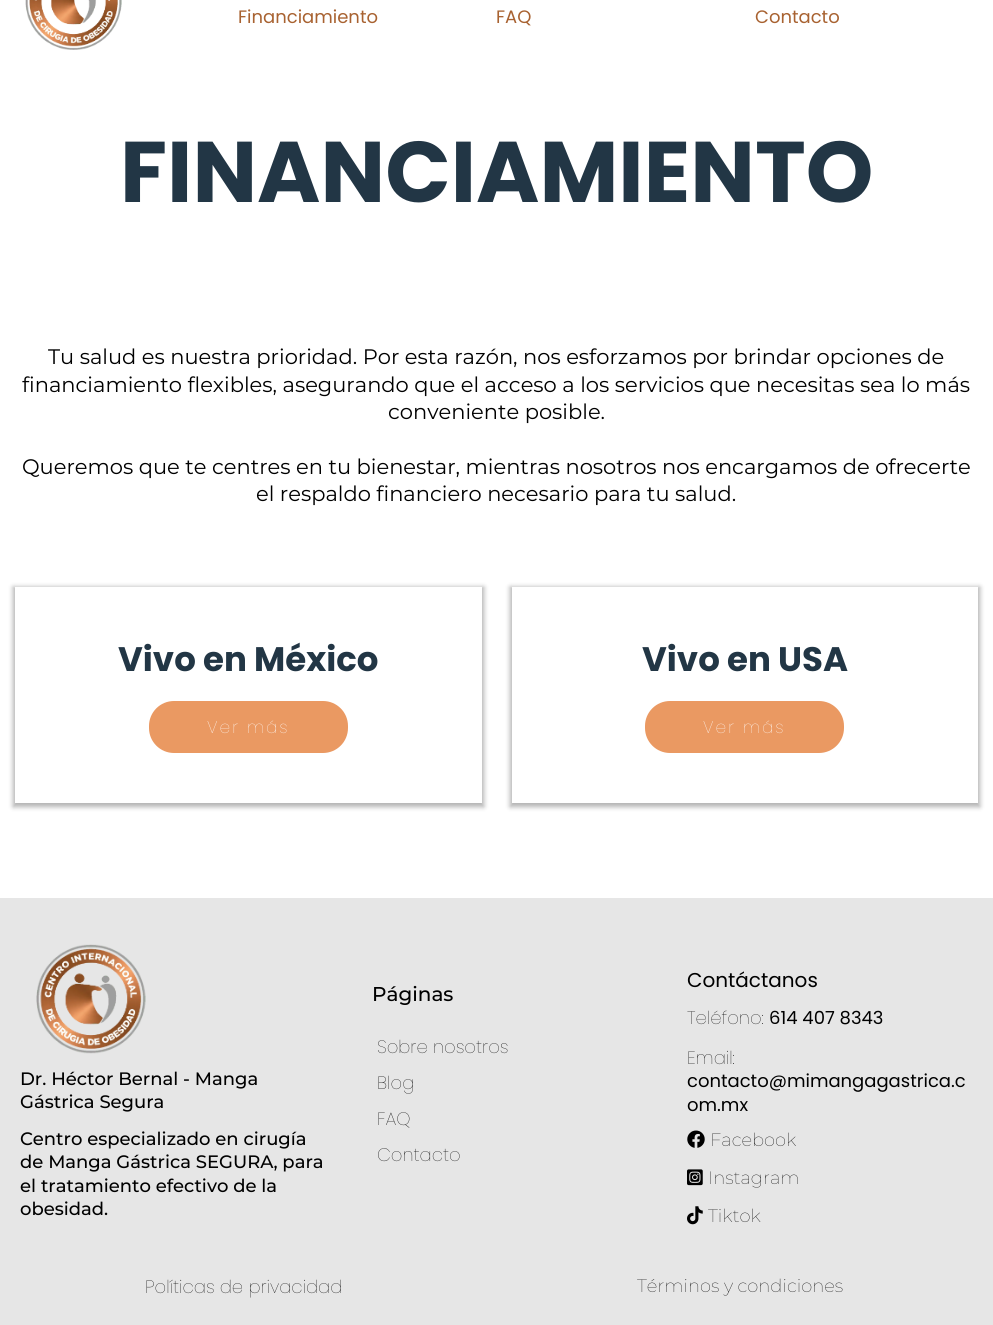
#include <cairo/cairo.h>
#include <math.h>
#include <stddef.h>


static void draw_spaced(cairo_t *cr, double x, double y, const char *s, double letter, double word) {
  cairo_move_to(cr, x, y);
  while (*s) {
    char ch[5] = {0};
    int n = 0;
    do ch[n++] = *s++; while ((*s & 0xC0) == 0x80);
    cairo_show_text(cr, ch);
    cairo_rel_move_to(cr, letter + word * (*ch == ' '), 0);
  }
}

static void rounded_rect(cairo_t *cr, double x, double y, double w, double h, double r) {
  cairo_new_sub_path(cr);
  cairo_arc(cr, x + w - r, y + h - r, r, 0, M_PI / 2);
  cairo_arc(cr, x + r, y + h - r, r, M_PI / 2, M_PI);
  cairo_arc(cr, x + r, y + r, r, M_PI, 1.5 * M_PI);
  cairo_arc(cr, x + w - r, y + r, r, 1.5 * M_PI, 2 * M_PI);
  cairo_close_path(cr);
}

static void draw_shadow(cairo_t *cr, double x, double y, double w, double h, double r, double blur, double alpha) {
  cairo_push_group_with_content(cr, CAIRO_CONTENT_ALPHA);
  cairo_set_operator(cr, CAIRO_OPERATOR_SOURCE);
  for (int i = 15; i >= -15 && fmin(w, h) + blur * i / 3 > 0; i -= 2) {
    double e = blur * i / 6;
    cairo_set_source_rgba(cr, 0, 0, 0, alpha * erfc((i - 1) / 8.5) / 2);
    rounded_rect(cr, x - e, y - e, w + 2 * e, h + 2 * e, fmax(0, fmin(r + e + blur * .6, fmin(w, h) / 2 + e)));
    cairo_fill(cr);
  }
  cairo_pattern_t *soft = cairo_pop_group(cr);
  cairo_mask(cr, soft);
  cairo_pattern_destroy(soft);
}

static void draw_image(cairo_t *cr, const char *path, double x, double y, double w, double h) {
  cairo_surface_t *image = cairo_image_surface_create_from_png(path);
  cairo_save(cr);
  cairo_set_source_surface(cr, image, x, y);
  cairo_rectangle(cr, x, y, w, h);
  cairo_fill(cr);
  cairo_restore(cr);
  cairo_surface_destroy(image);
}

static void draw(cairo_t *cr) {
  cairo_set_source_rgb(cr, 1, 1, 1);
  cairo_paint(cr);
  draw_image(cr, "images/1.png", 25, 0, 97, 50);
  cairo_save(cr);
  cairo_set_fill_rule(cr, CAIRO_FILL_RULE_EVEN_ODD);
  cairo_new_path(cr);
  cairo_move_to(cr, 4, 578);
  cairo_line_to(cr, 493, 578);
  cairo_line_to(cr, 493, 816);
  cairo_line_to(cr, 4, 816);
  cairo_close_path(cr);
  cairo_move_to(cr, 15, 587);
  cairo_line_to(cr, 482, 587);
  cairo_line_to(cr, 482, 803);
  cairo_line_to(cr, 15, 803);
  cairo_close_path(cr);
  cairo_clip(cr);
  cairo_set_source_rgb(cr, 0, 0, 0);
  draw_shadow(cr, 13, 587, 471, 220, 0, 2.5, 0.3);
  cairo_restore(cr);
  cairo_set_source_rgb(cr, 234 / 255.0, 153 / 255.0, 98 / 255.0);
  rounded_rect(cr, 150.5, 702.5, 196, 49, 23.5);
  cairo_fill_preserve(cr);
  cairo_set_line_width(cr, 3);
  cairo_stroke(cr);
  cairo_save(cr);
  cairo_set_fill_rule(cr, CAIRO_FILL_RULE_EVEN_ODD);
  cairo_new_path(cr);
  cairo_move_to(cr, 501, 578);
  cairo_line_to(cr, 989, 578);
  cairo_line_to(cr, 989, 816);
  cairo_line_to(cr, 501, 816);
  cairo_close_path(cr);
  cairo_move_to(cr, 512, 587);
  cairo_line_to(cr, 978, 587);
  cairo_line_to(cr, 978, 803);
  cairo_line_to(cr, 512, 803);
  cairo_close_path(cr);
  cairo_clip(cr);
  cairo_set_source_rgb(cr, 0, 0, 0);
  draw_shadow(cr, 510, 587, 470, 220, 0, 2.5, 0.3);
  cairo_restore(cr);
  rounded_rect(cr, 646.5, 702.5, 196, 49, 23.5);
  cairo_fill_preserve(cr);
  cairo_stroke(cr);
  cairo_set_source_rgb(cr, 230 / 255.0, 230 / 255.0, 230 / 255.0);
  cairo_rectangle(cr, 0, 898, 993, 427);
  cairo_fill(cr);
  draw_image(cr, "images/2.png", 36, 944, 110, 110);
  draw_image(cr, "images/3.png", 687, 1130, 18, 18);
  draw_image(cr, "images/4.png", 687, 1169, 16, 17);
  draw_image(cr, "images/5.png", 687, 1206, 16, 19);
  cairo_select_font_face(cr, "Poppins", CAIRO_FONT_SLANT_NORMAL, CAIRO_FONT_WEIGHT_NORMAL);
  cairo_set_font_size(cr, 18);
  cairo_set_source_rgb(cr, 168 / 255.0, 98 / 255.0, 49 / 255.0);
  cairo_move_to(cr, 238, 23);
  cairo_show_text(cr, "Financiamiento");
  cairo_move_to(cr, 496, 23);
  cairo_show_text(cr, "FAQ");
  cairo_move_to(cr, 755, 23);
  cairo_show_text(cr, "Contacto");
  cairo_select_font_face(cr, "Poppins", CAIRO_FONT_SLANT_NORMAL, CAIRO_FONT_WEIGHT_BOLD);
  cairo_set_font_size(cr, 86);
  cairo_set_source_rgb(cr, 34 / 255.0, 54 / 255.0, 69 / 255.0);
  cairo_move_to(cr, 120, 202);
  cairo_show_text(cr, "FINANCIAMIENTO");
  cairo_select_font_face(cr, "Montserrat", CAIRO_FONT_SLANT_NORMAL, CAIRO_FONT_WEIGHT_NORMAL);
  cairo_set_font_size(cr, 21);
  cairo_set_source_rgb(cr, 0, 0, 0);
  cairo_move_to(cr, 48, 364);
  cairo_show_text(cr, "Tu salud es nuestra prioridad. Por esta razón, nos esforzamos por brindar opciones de");
  cairo_move_to(cr, 22, 392);
  cairo_show_text(cr, "financiamiento flexibles, asegurando que el acceso a los servicios que necesitas sea lo más");
  cairo_move_to(cr, 388, 419);
  cairo_show_text(cr, "conveniente posible.");
  cairo_move_to(cr, 22, 474);
  cairo_show_text(cr, "Queremos que te centres en tu bienestar, mientras nosotros nos encargamos de ofrecerte");
  cairo_move_to(cr, 256, 501);
  cairo_show_text(cr, "el respaldo financiero necesario para tu salud.");
  cairo_select_font_face(cr, "Poppins", CAIRO_FONT_SLANT_NORMAL, CAIRO_FONT_WEIGHT_BOLD);
  cairo_set_font_size(cr, 34);
  cairo_set_source_rgb(cr, 34 / 255.0, 54 / 255.0, 69 / 255.0);
  cairo_move_to(cr, 118, 671);
  cairo_show_text(cr, "Vivo en México");
  cairo_select_font_face(cr, "Poppins Thin", CAIRO_FONT_SLANT_NORMAL, CAIRO_FONT_WEIGHT_NORMAL);
  cairo_set_font_size(cr, 17);
  cairo_set_source_rgb(cr, 1, 1, 1);
  draw_spaced(cr, 207, 733, "Ver más", 2, 0);
  cairo_select_font_face(cr, "Poppins", CAIRO_FONT_SLANT_NORMAL, CAIRO_FONT_WEIGHT_BOLD);
  cairo_set_font_size(cr, 34);
  cairo_set_source_rgb(cr, 34 / 255.0, 54 / 255.0, 69 / 255.0);
  cairo_move_to(cr, 642, 671);
  cairo_show_text(cr, "Vivo en USA");
  cairo_select_font_face(cr, "Poppins Thin", CAIRO_FONT_SLANT_NORMAL, CAIRO_FONT_WEIGHT_NORMAL);
  cairo_set_font_size(cr, 17);
  cairo_set_source_rgb(cr, 1, 1, 1);
  draw_spaced(cr, 703, 733, "Ver más", 2, 0);
  cairo_select_font_face(cr, "Montserrat Medium", CAIRO_FONT_SLANT_NORMAL, CAIRO_FONT_WEIGHT_NORMAL);
  cairo_set_font_size(cr, 18);
  cairo_set_source_rgb(cr, 0, 0, 0);
  cairo_move_to(cr, 20, 1085);
  cairo_show_text(cr, "Dr. Héctor Bernal - Manga");
  cairo_move_to(cr, 20, 1108);
  cairo_show_text(cr, "Gástrica Segura");
  cairo_move_to(cr, 20, 1145);
  cairo_show_text(cr, "Centro especializado en cirugía");
  cairo_move_to(cr, 20, 1168);
  cairo_show_text(cr, "de Manga Gástrica SEGURA, para");
  cairo_move_to(cr, 20, 1192);
  cairo_show_text(cr, "el tratamiento efectivo de la");
  cairo_move_to(cr, 20, 1215);
  cairo_show_text(cr, "obesidad.");
  cairo_set_font_size(cr, 20);
  cairo_move_to(cr, 372, 1001);
  cairo_show_text(cr, "Páginas");
  cairo_select_font_face(cr, "Poppins Thin", CAIRO_FONT_SLANT_NORMAL, CAIRO_FONT_WEIGHT_NORMAL);
  cairo_set_font_size(cr, 18);
  cairo_move_to(cr, 377, 1053);
  cairo_show_text(cr, "Sobre nosotros");
  cairo_move_to(cr, 377, 1089);
  cairo_show_text(cr, "Blog");
  cairo_move_to(cr, 377, 1125);
  cairo_show_text(cr, "FAQ");
  cairo_move_to(cr, 377, 1161);
  cairo_show_text(cr, "Contacto");
  cairo_select_font_face(cr, "Poppins", CAIRO_FONT_SLANT_NORMAL, CAIRO_FONT_WEIGHT_NORMAL);
  cairo_set_font_size(cr, 20);
  cairo_move_to(cr, 687, 987);
  cairo_show_text(cr, "Contáctanos");
  cairo_select_font_face(cr, "Poppins Thin", CAIRO_FONT_SLANT_NORMAL, CAIRO_FONT_WEIGHT_NORMAL);
  cairo_set_font_size(cr, 18);
  cairo_move_to(cr, 687, 1024);
  cairo_show_text(cr, "Teléfono:");
  cairo_select_font_face(cr, "Poppins", CAIRO_FONT_SLANT_NORMAL, CAIRO_FONT_WEIGHT_NORMAL);
  cairo_move_to(cr, 769, 1024);
  cairo_show_text(cr, "614 407 8343");
  cairo_select_font_face(cr, "Poppins Thin", CAIRO_FONT_SLANT_NORMAL, CAIRO_FONT_WEIGHT_NORMAL);
  cairo_move_to(cr, 687, 1064);
  cairo_show_text(cr, "Email:");
  cairo_select_font_face(cr, "Poppins", CAIRO_FONT_SLANT_NORMAL, CAIRO_FONT_WEIGHT_NORMAL);
  cairo_move_to(cr, 687, 1087);
  cairo_show_text(cr, "contacto@mimangagastrica.c");
  cairo_move_to(cr, 687, 1111);
  cairo_show_text(cr, "om.mx");
  cairo_select_font_face(cr, "Montserrat Thin", CAIRO_FONT_SLANT_NORMAL, CAIRO_FONT_WEIGHT_NORMAL);
  cairo_move_to(cr, 710, 1146);
  cairo_show_text(cr, "Facebook");
  cairo_move_to(cr, 708, 1184);
  cairo_show_text(cr, "Instagram");
  cairo_move_to(cr, 708, 1222);
  cairo_show_text(cr, "Tiktok");
  cairo_select_font_face(cr, "Poppins Thin", CAIRO_FONT_SLANT_NORMAL, CAIRO_FONT_WEIGHT_NORMAL);
  cairo_move_to(cr, 145, 1293);
  cairo_show_text(cr, "Políticas de privacidad");
  cairo_select_font_face(cr, "Montserrat Thin", CAIRO_FONT_SLANT_NORMAL, CAIRO_FONT_WEIGHT_NORMAL);
  cairo_move_to(cr, 637, 1292);
  cairo_show_text(cr, "Términos y condiciones");
}

int main(void) {
  cairo_surface_t *surface = cairo_image_surface_create(CAIRO_FORMAT_RGB24, 993, 1325);
  cairo_t *cr = cairo_create(surface);
  cairo_font_options_t *options = cairo_font_options_create();
  cairo_font_options_set_hint_metrics(options, CAIRO_HINT_METRICS_OFF);
  cairo_font_options_set_hint_style(options, CAIRO_HINT_STYLE_NONE);
  cairo_set_font_options(cr, options);
  cairo_set_miter_limit(cr, 4);
  draw(cr);
  cairo_surface_write_to_png(surface, "out.png");
  cairo_font_options_destroy(options);
  cairo_destroy(cr);
  cairo_surface_destroy(surface);
  return 0;
}
